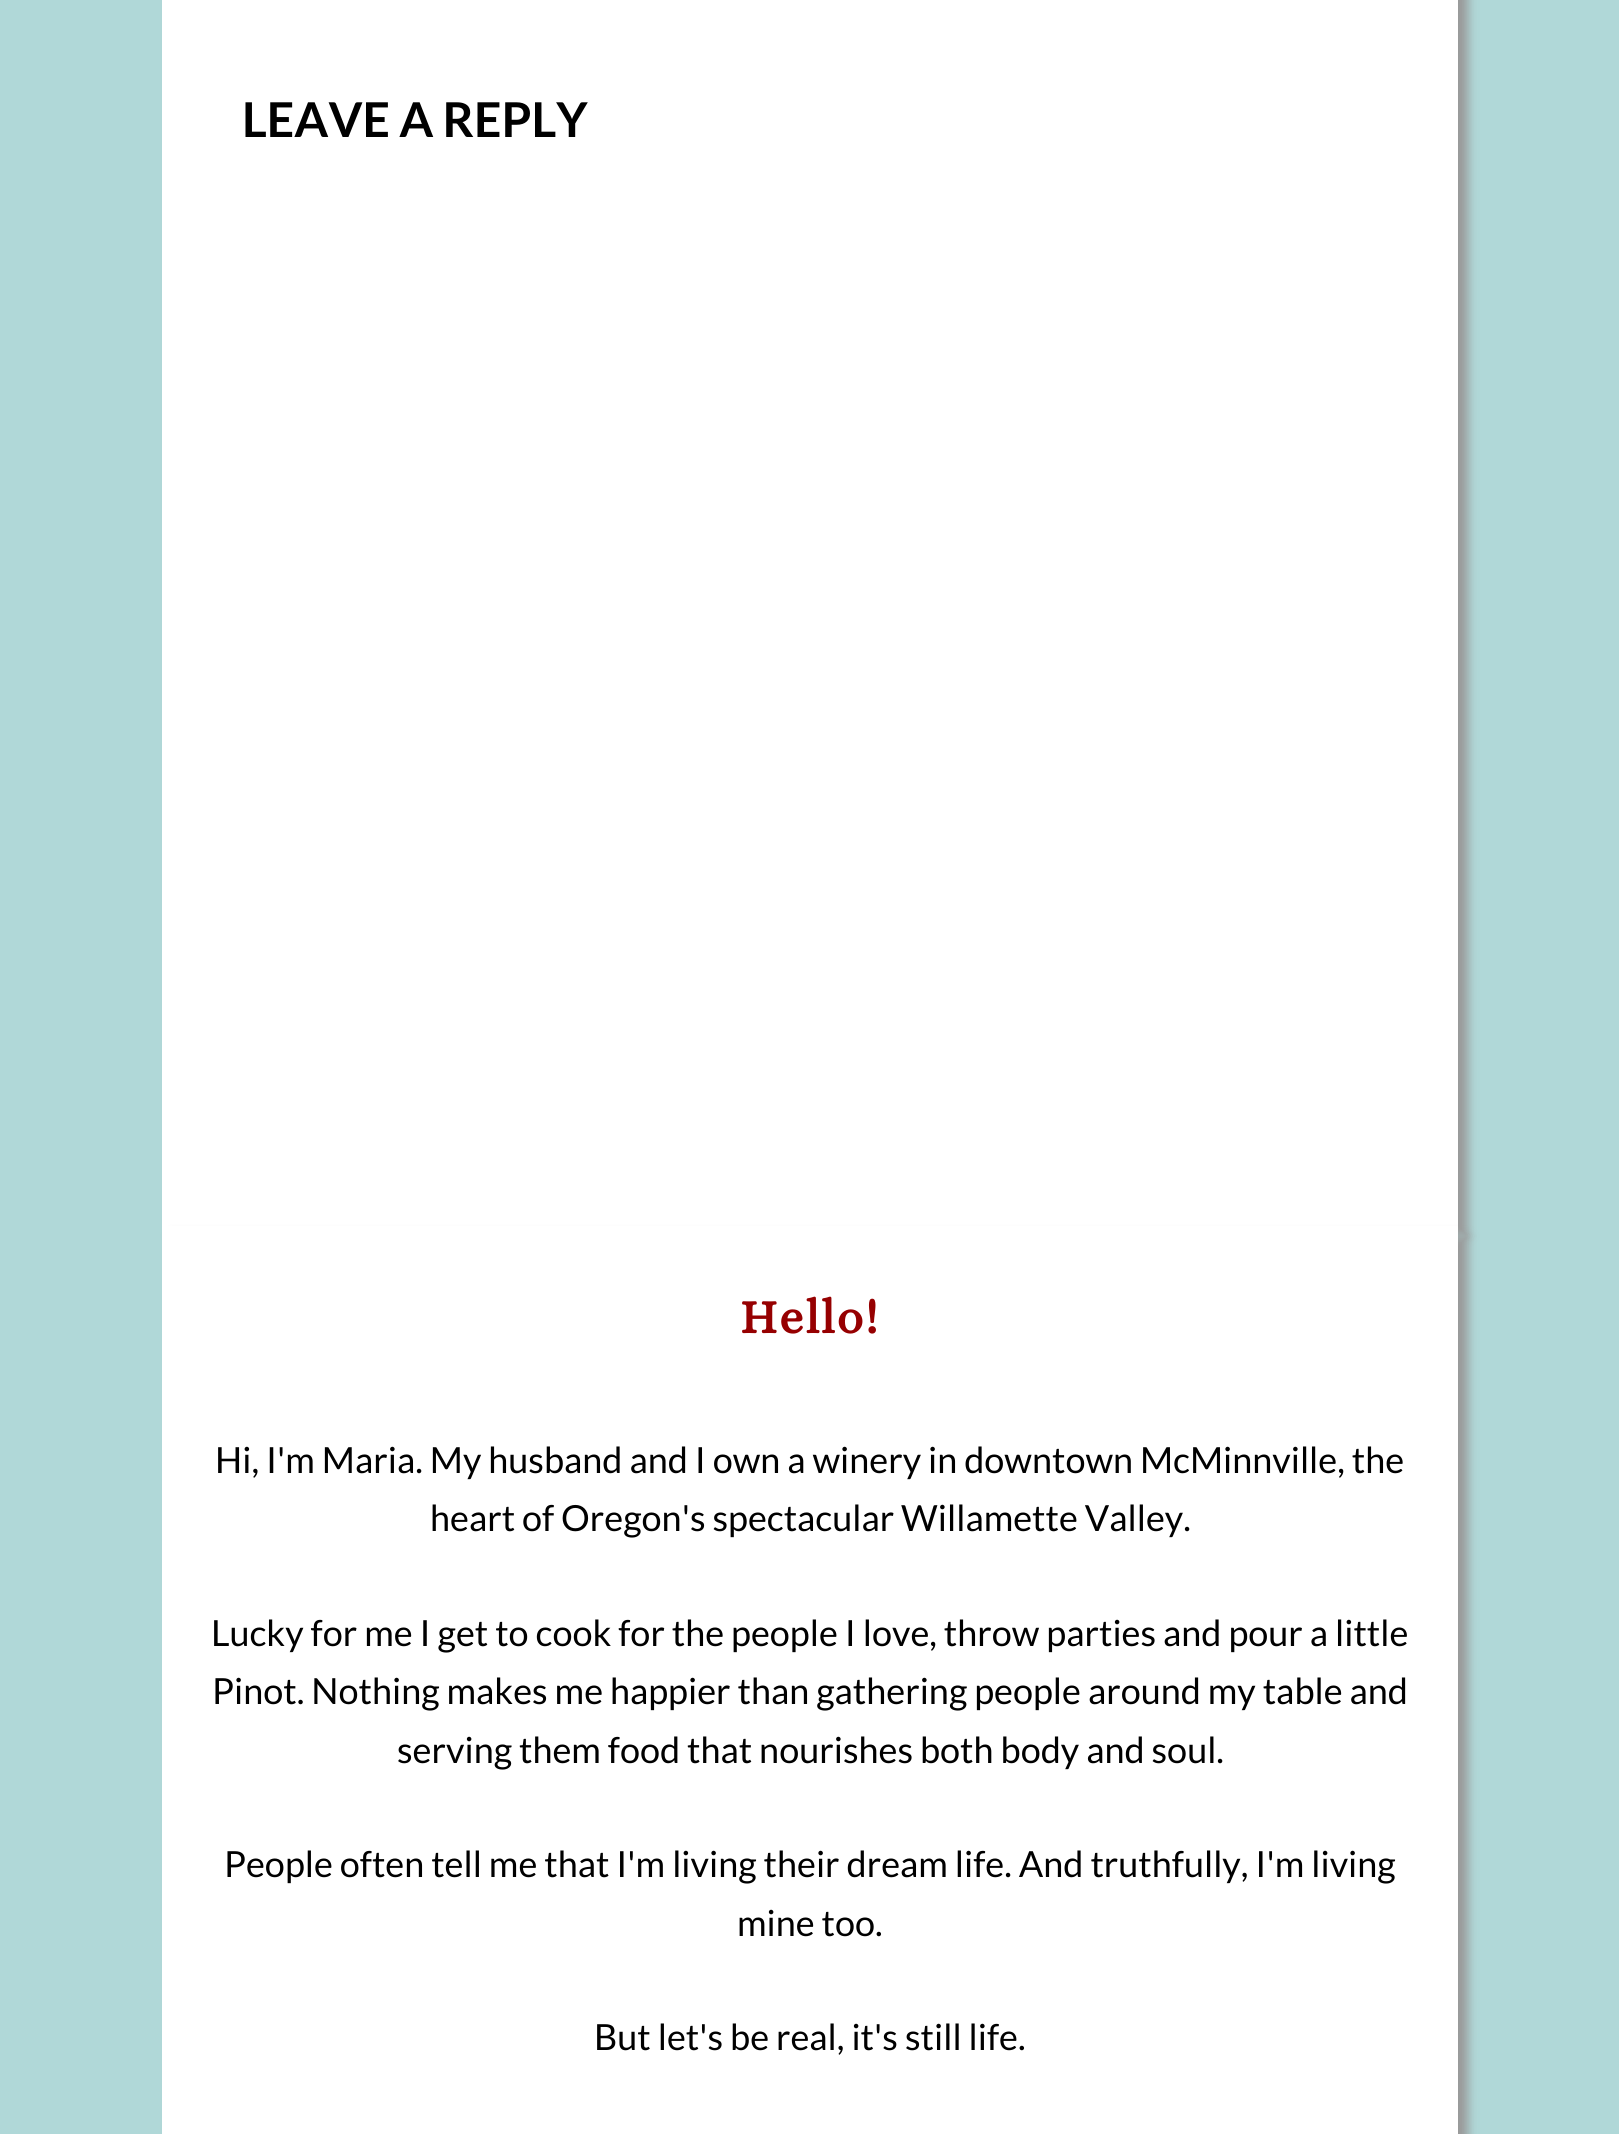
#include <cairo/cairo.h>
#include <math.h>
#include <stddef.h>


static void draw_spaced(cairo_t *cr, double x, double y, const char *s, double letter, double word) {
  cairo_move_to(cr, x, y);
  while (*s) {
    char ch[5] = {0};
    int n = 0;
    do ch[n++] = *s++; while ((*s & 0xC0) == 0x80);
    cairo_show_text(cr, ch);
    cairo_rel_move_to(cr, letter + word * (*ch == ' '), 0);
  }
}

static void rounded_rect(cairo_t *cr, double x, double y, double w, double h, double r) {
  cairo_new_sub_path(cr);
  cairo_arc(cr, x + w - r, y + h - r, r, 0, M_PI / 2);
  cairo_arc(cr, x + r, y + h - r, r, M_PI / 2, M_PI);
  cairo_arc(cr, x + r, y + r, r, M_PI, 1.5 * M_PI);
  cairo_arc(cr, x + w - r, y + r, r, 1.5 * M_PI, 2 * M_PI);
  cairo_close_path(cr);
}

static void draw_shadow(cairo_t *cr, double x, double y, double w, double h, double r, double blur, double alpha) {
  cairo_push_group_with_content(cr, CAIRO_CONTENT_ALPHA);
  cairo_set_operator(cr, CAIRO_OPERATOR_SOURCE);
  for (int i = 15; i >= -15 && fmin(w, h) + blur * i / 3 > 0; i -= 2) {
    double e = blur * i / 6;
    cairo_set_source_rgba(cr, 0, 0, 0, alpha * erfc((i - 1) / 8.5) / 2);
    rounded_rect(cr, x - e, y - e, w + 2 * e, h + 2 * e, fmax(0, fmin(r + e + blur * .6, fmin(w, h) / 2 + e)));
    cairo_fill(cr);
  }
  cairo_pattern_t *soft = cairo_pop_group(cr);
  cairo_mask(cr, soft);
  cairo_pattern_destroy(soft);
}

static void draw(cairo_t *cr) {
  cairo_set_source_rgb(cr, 176 / 255.0, 216 / 255.0, 216 / 255.0);
  cairo_paint(cr);
  cairo_set_source_rgb(cr, 153 / 255.0, 153 / 255.0, 153 / 255.0);
  draw_shadow(cr, 172, -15, 1296, 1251, 0, 5, 1);
  cairo_set_source_rgb(cr, 1, 1, 1);
  cairo_rectangle(cr, 162, 0, 1296, 1226);
  cairo_fill(cr);
  cairo_set_source_rgb(cr, 153 / 255.0, 153 / 255.0, 153 / 255.0);
  draw_shadow(cr, 172, 1236, 1296, 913, 0, 5, 1);
  cairo_set_source_rgb(cr, 1, 1, 1);
  cairo_rectangle(cr, 162, 1226, 1296, 908);
  cairo_fill(cr);
  cairo_select_font_face(cr, "Lato", CAIRO_FONT_SLANT_NORMAL, CAIRO_FONT_WEIGHT_BOLD);
  cairo_set_font_size(cr, 48);
  cairo_set_source_rgb(cr, 0, 0, 0);
  cairo_move_to(cr, 242, 137);
  cairo_show_text(cr, "LEAVE A REPLY");
  cairo_select_font_face(cr, "Alice", CAIRO_FONT_SLANT_NORMAL, CAIRO_FONT_WEIGHT_BOLD);
  cairo_set_source_rgb(cr, 150 / 255.0, 0, 1 / 255.0);
  draw_spaced(cr, 740, 1333, "Hello!", 2, 0);
  cairo_select_font_face(cr, "Lato", CAIRO_FONT_SLANT_NORMAL, CAIRO_FONT_WEIGHT_NORMAL);
  cairo_set_font_size(cr, 36);
  cairo_set_source_rgb(cr, 0, 0, 0);
  cairo_move_to(cr, 215, 1473);
  cairo_show_text(cr, "Hi, I'm Maria. My husband and I own a winery in downtown McMinnville, the");
  cairo_move_to(cr, 430, 1531);
  cairo_show_text(cr, "heart of Oregon's spectacular Willamette Valley.");
  cairo_move_to(cr, 211, 1646);
  cairo_show_text(cr, "Lucky for me I get to cook for the people I love, throw parties and pour a little");
  cairo_move_to(cr, 212, 1704);
  cairo_show_text(cr, "Pinot. Nothing makes me happier than gathering people around my table and");
  cairo_move_to(cr, 397, 1763);
  cairo_show_text(cr, "serving them food that nourishes both body and soul.");
  cairo_move_to(cr, 224, 1877);
  cairo_show_text(cr, "People often tell me that I'm living their dream life. And truthfully, I'm living");
  cairo_move_to(cr, 737, 1936);
  cairo_show_text(cr, "mine too.");
  cairo_move_to(cr, 594, 2050);
  cairo_show_text(cr, "But let's be real, it's still life.");
}

int main(void) {
  cairo_surface_t *surface = cairo_image_surface_create(CAIRO_FORMAT_RGB24, 1619, 2134);
  cairo_t *cr = cairo_create(surface);
  cairo_font_options_t *options = cairo_font_options_create();
  cairo_font_options_set_hint_metrics(options, CAIRO_HINT_METRICS_OFF);
  cairo_font_options_set_hint_style(options, CAIRO_HINT_STYLE_NONE);
  cairo_set_font_options(cr, options);
  cairo_set_miter_limit(cr, 4);
  draw(cr);
  cairo_surface_write_to_png(surface, "out.png");
  cairo_font_options_destroy(options);
  cairo_destroy(cr);
  cairo_surface_destroy(surface);
  return 0;
}
